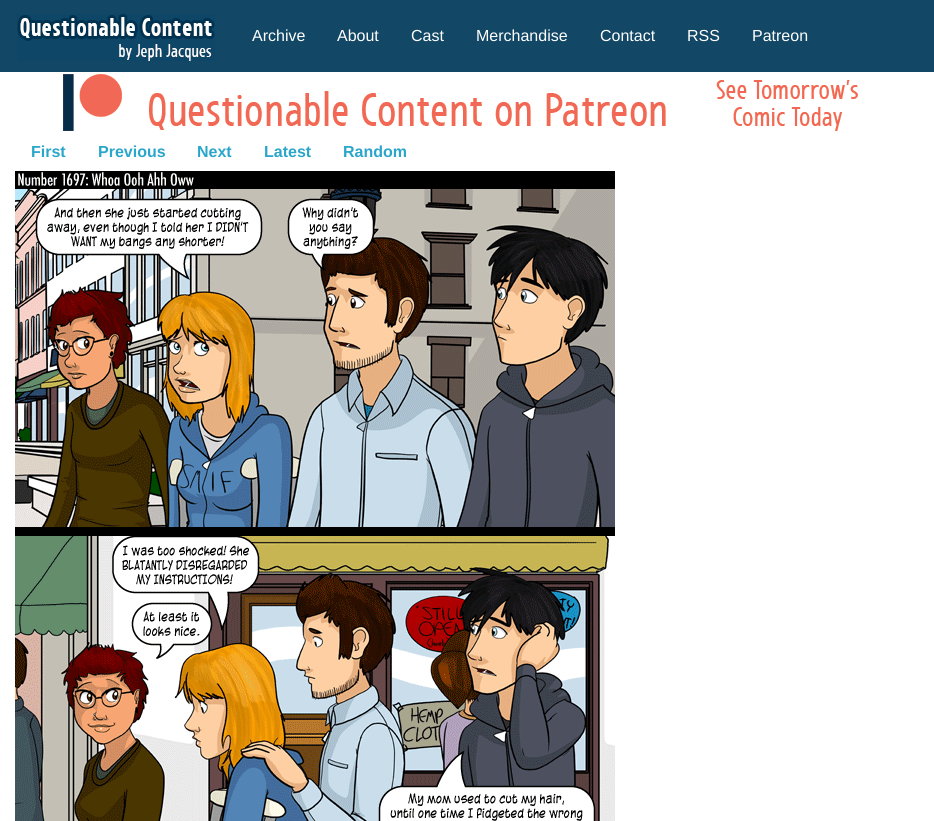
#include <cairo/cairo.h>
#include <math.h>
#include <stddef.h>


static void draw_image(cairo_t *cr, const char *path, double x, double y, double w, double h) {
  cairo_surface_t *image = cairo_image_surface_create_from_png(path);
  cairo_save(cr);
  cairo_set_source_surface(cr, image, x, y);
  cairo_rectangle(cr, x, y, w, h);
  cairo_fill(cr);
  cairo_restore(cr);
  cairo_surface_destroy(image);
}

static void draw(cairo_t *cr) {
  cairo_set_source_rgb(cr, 18 / 255.0, 71 / 255.0, 102 / 255.0);
  cairo_paint(cr);
  draw_image(cr, "images/1.png", 17, 14, 198, 47);
  cairo_set_source_rgb(cr, 1, 1, 1);
  cairo_rectangle(cr, 0, 72, 934, 749);
  cairo_fill(cr);
  draw_image(cr, "images/2.png", 63, 74, 795, 57);
  draw_image(cr, "images/3.png", 15, 171, 600, 650);
  cairo_select_font_face(cr, "Liberation Sans", CAIRO_FONT_SLANT_NORMAL, CAIRO_FONT_WEIGHT_NORMAL);
  cairo_set_font_size(cr, 16);
  cairo_move_to(cr, 252, 41);
  cairo_show_text(cr, "Archive");
  cairo_move_to(cr, 337, 41);
  cairo_show_text(cr, "About");
  cairo_move_to(cr, 411, 41);
  cairo_show_text(cr, "Cast");
  cairo_move_to(cr, 476, 41);
  cairo_show_text(cr, "Merchandise");
  cairo_move_to(cr, 600, 41);
  cairo_show_text(cr, "Contact");
  cairo_move_to(cr, 687, 41);
  cairo_show_text(cr, "RSS");
  cairo_move_to(cr, 752, 41);
  cairo_show_text(cr, "Patreon");
  cairo_select_font_face(cr, "Liberation Sans", CAIRO_FONT_SLANT_NORMAL, CAIRO_FONT_WEIGHT_BOLD);
  cairo_set_source_rgb(cr, 43 / 255.0, 166 / 255.0, 203 / 255.0);
  cairo_move_to(cr, 31, 157);
  cairo_show_text(cr, "First");
  cairo_move_to(cr, 98, 157);
  cairo_show_text(cr, "Previous");
  cairo_move_to(cr, 197, 157);
  cairo_show_text(cr, "Next");
  cairo_move_to(cr, 264, 157);
  cairo_show_text(cr, "Latest");
  cairo_move_to(cr, 343, 157);
  cairo_show_text(cr, "Random");
}

int main(void) {
  cairo_surface_t *surface = cairo_image_surface_create(CAIRO_FORMAT_RGB24, 934, 821);
  cairo_t *cr = cairo_create(surface);
  cairo_font_options_t *options = cairo_font_options_create();
  cairo_font_options_set_hint_metrics(options, CAIRO_HINT_METRICS_OFF);
  cairo_font_options_set_hint_style(options, CAIRO_HINT_STYLE_NONE);
  cairo_set_font_options(cr, options);
  cairo_set_miter_limit(cr, 4);
  draw(cr);
  cairo_surface_write_to_png(surface, "out.png");
  cairo_font_options_destroy(options);
  cairo_destroy(cr);
  cairo_surface_destroy(surface);
  return 0;
}
